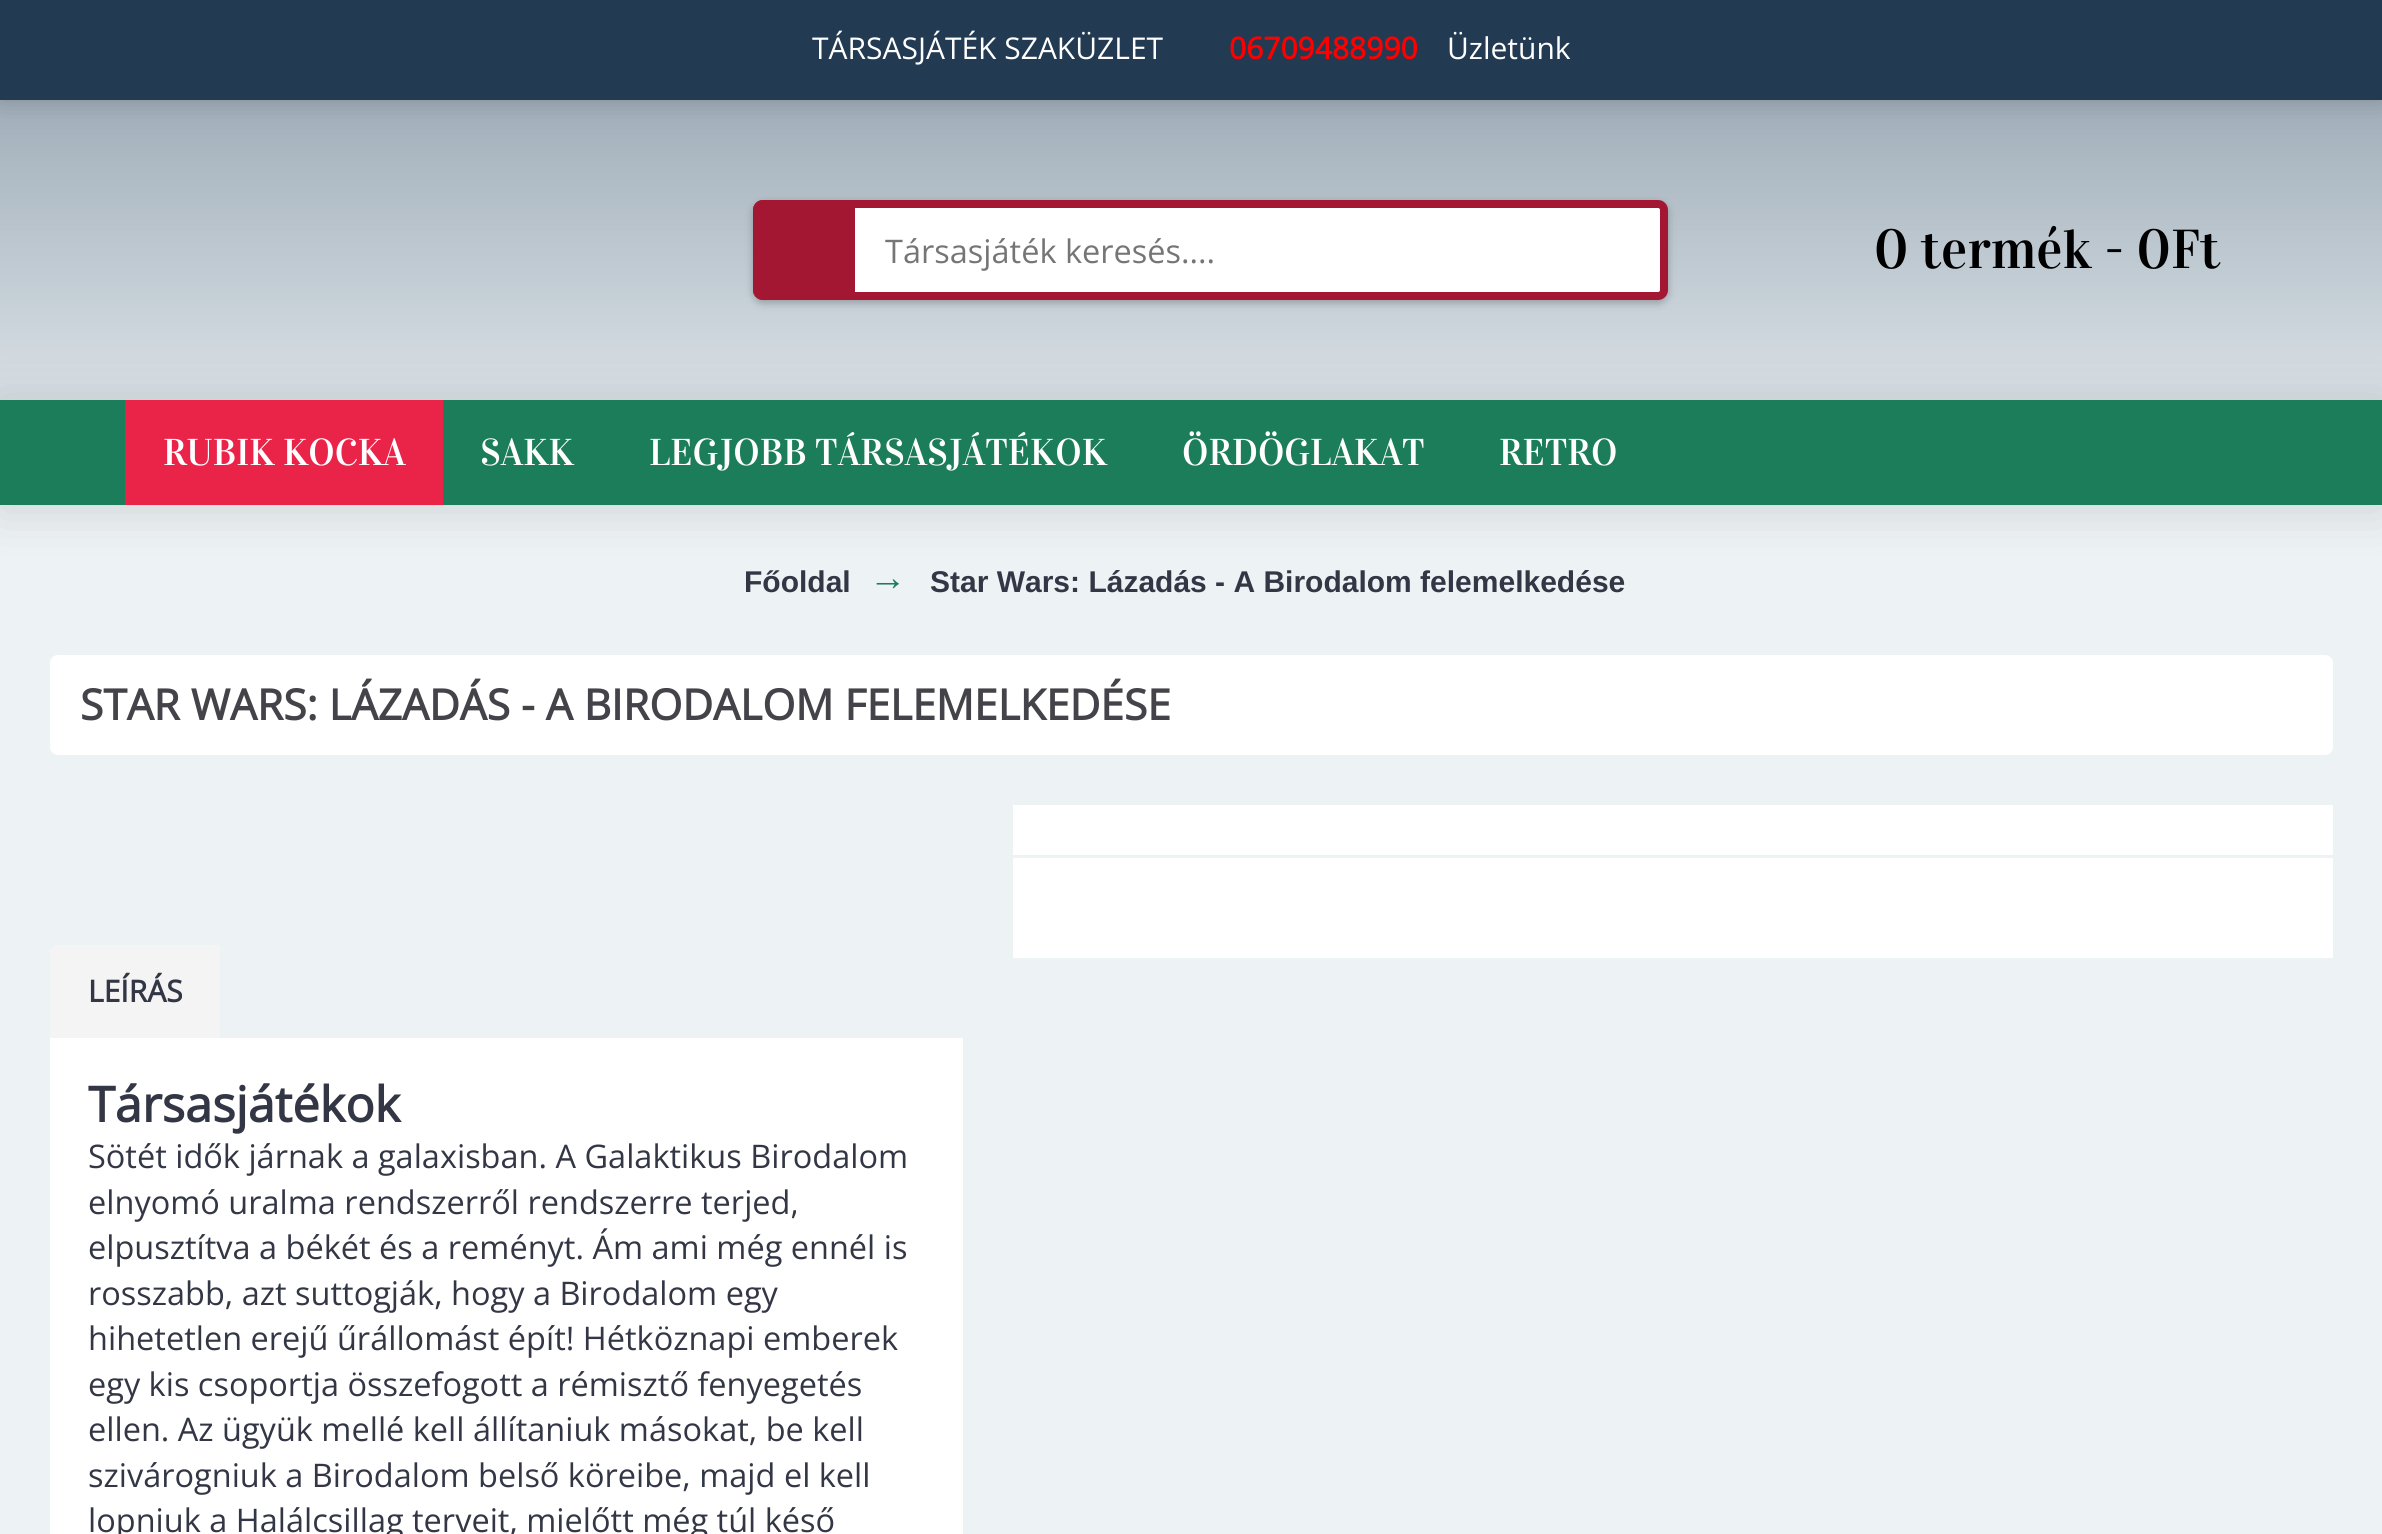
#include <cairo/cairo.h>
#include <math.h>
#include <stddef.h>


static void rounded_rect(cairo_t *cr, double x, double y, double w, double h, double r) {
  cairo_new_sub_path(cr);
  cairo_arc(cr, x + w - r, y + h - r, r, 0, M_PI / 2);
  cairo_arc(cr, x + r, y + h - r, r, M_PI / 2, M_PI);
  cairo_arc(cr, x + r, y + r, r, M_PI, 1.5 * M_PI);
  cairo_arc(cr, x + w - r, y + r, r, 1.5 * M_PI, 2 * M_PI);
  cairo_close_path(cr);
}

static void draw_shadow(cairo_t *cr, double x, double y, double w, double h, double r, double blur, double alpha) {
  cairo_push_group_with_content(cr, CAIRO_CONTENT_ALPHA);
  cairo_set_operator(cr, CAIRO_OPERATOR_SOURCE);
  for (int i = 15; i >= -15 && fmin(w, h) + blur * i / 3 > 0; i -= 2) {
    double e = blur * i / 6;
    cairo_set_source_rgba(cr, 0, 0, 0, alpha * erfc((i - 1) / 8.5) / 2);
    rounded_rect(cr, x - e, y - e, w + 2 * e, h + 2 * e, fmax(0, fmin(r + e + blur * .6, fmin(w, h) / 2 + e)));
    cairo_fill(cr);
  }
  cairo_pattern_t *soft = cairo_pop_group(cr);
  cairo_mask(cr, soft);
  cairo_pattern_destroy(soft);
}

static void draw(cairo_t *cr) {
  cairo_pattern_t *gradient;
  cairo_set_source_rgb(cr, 237 / 255.0, 242 / 255.0, 245 / 255.0);
  cairo_paint(cr);
  gradient = cairo_pattern_create_linear(1191, 0, 1191, 505);
  cairo_pattern_add_color_stop_rgba(gradient, 0, 142 / 255.0, 158 / 255.0, 171 / 255.0, 1);
  cairo_pattern_add_color_stop_rgba(gradient, 1, 237 / 255.0, 242 / 255.0, 245 / 255.0, 1);
  cairo_set_source(cr, gradient);
  cairo_pattern_destroy(gradient);
  cairo_rectangle(cr, 0, 100, 2382, 300);
  cairo_fill(cr);
  cairo_set_source_rgb(cr, 0, 0, 0);
  draw_shadow(cr, 0, 0, 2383, 100, 0, 12.5, 0.2);
  cairo_set_source_rgb(cr, 35 / 255.0, 58 / 255.0, 83 / 255.0);
  cairo_rectangle(cr, 0, 0, 2382, 100);
  cairo_fill(cr);
  cairo_set_source_rgb(cr, 0, 0, 0);
  draw_shadow(cr, 753, 203, 915, 100, 10, 4, 0.25);
  cairo_set_source_rgb(cr, 1, 1, 1);
  rounded_rect(cr, 757, 204, 907, 92, 6);
  cairo_fill_preserve(cr);
  cairo_set_source_rgb(cr, 164 / 255.0, 23 / 255.0, 51 / 255.0);
  cairo_set_line_width(cr, 8);
  cairo_stroke(cr);
  cairo_new_path(cr);
  cairo_move_to(cr, 763, 200);
  cairo_line_to(cr, 855, 200);
  cairo_line_to(cr, 855, 300);
  cairo_line_to(cr, 763, 300);
  cairo_curve_to(cr, 757.5, 300, 753, 295.5, 753, 290);
  cairo_line_to(cr, 753, 210);
  cairo_curve_to(cr, 753, 204.5, 757.5, 200, 763, 200);
  cairo_close_path(cr);
  cairo_fill(cr);
  cairo_set_source_rgb(cr, 0, 0, 0);
  draw_shadow(cr, 0, 405, 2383, 105, 0, 25, 0.14);
  cairo_set_source_rgb(cr, 28 / 255.0, 125 / 255.0, 90 / 255.0);
  cairo_rectangle(cr, 0, 400, 2382, 105);
  cairo_fill(cr);
  cairo_set_source_rgb(cr, 234 / 255.0, 35 / 255.0, 73 / 255.0);
  cairo_rectangle(cr, 125, 400, 318, 105);
  cairo_fill(cr);
  cairo_set_source_rgb(cr, 1, 1, 1);
  rounded_rect(cr, 50, 655, 2283, 100, 8);
  cairo_fill(cr);
  cairo_rectangle(cr, 1013, 805, 1320, 50);
  cairo_fill(cr);
  cairo_rectangle(cr, 1013, 858, 1320, 100);
  cairo_fill(cr);
  cairo_set_source_rgb(cr, 244 / 255.0, 244 / 255.0, 244 / 255.0);
  cairo_new_path(cr);
  cairo_move_to(cr, 58, 945);
  cairo_line_to(cr, 220, 945);
  cairo_line_to(cr, 220, 1038);
  cairo_line_to(cr, 50, 1038);
  cairo_line_to(cr, 50, 953);
  cairo_curve_to(cr, 50, 948.5, 53.5, 945, 58, 945);
  cairo_close_path(cr);
  cairo_fill(cr);
  cairo_set_source_rgb(cr, 1, 1, 1);
  cairo_rectangle(cr, 50, 1038, 913, 496);
  cairo_fill(cr);
  cairo_select_font_face(cr, "Open Sans", CAIRO_FONT_SLANT_NORMAL, CAIRO_FONT_WEIGHT_NORMAL);
  cairo_set_font_size(cr, 30);
  cairo_move_to(cr, 812, 59);
  cairo_show_text(cr, "TÁRSASJÁTÉK SZAKÜZLET");
  cairo_select_font_face(cr, "Open Sans", CAIRO_FONT_SLANT_NORMAL, CAIRO_FONT_WEIGHT_BOLD);
  cairo_set_source_rgb(cr, 1, 0, 0);
  cairo_move_to(cr, 1229, 59);
  cairo_show_text(cr, "06709488990");
  cairo_select_font_face(cr, "Open Sans", CAIRO_FONT_SLANT_NORMAL, CAIRO_FONT_WEIGHT_NORMAL);
  cairo_set_source_rgb(cr, 1, 1, 1);
  cairo_move_to(cr, 1447, 59);
  cairo_show_text(cr, "Üzletünk");
  cairo_set_font_size(cr, 32.5);
  cairo_set_source_rgb(cr, 117 / 255.0, 117 / 255.0, 117 / 255.0);
  cairo_move_to(cr, 885, 263);
  cairo_show_text(cr, "Társasjáték keresés....");
  cairo_select_font_face(cr, "Vidaloka", CAIRO_FONT_SLANT_NORMAL, CAIRO_FONT_WEIGHT_NORMAL);
  cairo_set_font_size(cr, 55);
  cairo_set_source_rgb(cr, 0, 0, 0);
  cairo_move_to(cr, 1874, 268);
  cairo_show_text(cr, "0 termék - 0Ft");
  cairo_set_font_size(cr, 37.5);
  cairo_set_source_rgb(cr, 1, 1, 1);
  cairo_move_to(cr, 163, 465);
  cairo_show_text(cr, "RUBIK KOCKA");
  cairo_move_to(cr, 480, 465);
  cairo_show_text(cr, "SAKK");
  cairo_move_to(cr, 649, 465);
  cairo_show_text(cr, "LEGJOBB TÁRSASJÁTÉKOK");
  cairo_move_to(cr, 1182, 465);
  cairo_show_text(cr, "ÖRDÖGLAKAT");
  cairo_move_to(cr, 1499, 465);
  cairo_show_text(cr, "RETRO");
  cairo_select_font_face(cr, "Liberation Sans", CAIRO_FONT_SLANT_NORMAL, CAIRO_FONT_WEIGHT_BOLD);
  cairo_set_font_size(cr, 30);
  cairo_set_source_rgb(cr, 51 / 255.0, 55 / 255.0, 69 / 255.0);
  cairo_move_to(cr, 744, 592);
  cairo_show_text(cr, "Főoldal");
  cairo_select_font_face(cr, "Liberation Serif", CAIRO_FONT_SLANT_NORMAL, CAIRO_FONT_WEIGHT_NORMAL);
  cairo_set_font_size(cr, 37.5);
  cairo_set_source_rgb(cr, 28 / 255.0, 125 / 255.0, 90 / 255.0);
  cairo_move_to(cr, 869, 590);
  cairo_show_text(cr, "→");
  cairo_select_font_face(cr, "Liberation Sans", CAIRO_FONT_SLANT_NORMAL, CAIRO_FONT_WEIGHT_BOLD);
  cairo_set_font_size(cr, 30);
  cairo_set_source_rgb(cr, 51 / 255.0, 55 / 255.0, 69 / 255.0);
  cairo_move_to(cr, 930, 592);
  cairo_show_text(cr, "Star Wars: Lázadás - A Birodalom felemelkedése");
  cairo_select_font_face(cr, "Open Sans", CAIRO_FONT_SLANT_NORMAL, CAIRO_FONT_WEIGHT_BOLD);
  cairo_set_font_size(cr, 42.5);
  cairo_set_source_rgb(cr, 68 / 255.0, 67 / 255.0, 73 / 255.0);
  cairo_move_to(cr, 80, 720);
  cairo_show_text(cr, "STAR WARS: LÁZADÁS - A BIRODALOM FELEMELKEDÉSE");
  cairo_set_font_size(cr, 30);
  cairo_set_source_rgb(cr, 51 / 255.0, 55 / 255.0, 69 / 255.0);
  cairo_move_to(cr, 88, 1002);
  cairo_show_text(cr, "LEÍRÁS");
  cairo_set_font_size(cr, 48.75);
  cairo_move_to(cr, 88, 1122);
  cairo_show_text(cr, "Társasjátékok");
  cairo_select_font_face(cr, "Open Sans", CAIRO_FONT_SLANT_NORMAL, CAIRO_FONT_WEIGHT_NORMAL);
  cairo_set_font_size(cr, 32.5);
  cairo_move_to(cr, 88, 1168);
  cairo_show_text(cr, "Sötét idők járnak a galaxisban. A Galaktikus Birodalom");
  cairo_move_to(cr, 88, 1214);
  cairo_show_text(cr, "elnyomó uralma rendszerről rendszerre terjed,");
  cairo_move_to(cr, 88, 1259);
  cairo_show_text(cr, "elpusztítva a békét és a reményt. Ám ami még ennél is");
  cairo_move_to(cr, 88, 1305);
  cairo_show_text(cr, "rosszabb, azt suttogják, hogy a Birodalom egy");
  cairo_move_to(cr, 88, 1350);
  cairo_show_text(cr, "hihetetlen erejű űrállomást épít! Hétköznapi emberek");
  cairo_move_to(cr, 88, 1396);
  cairo_show_text(cr, "egy kis csoportja összefogott a rémisztő fenyegetés");
  cairo_move_to(cr, 88, 1441);
  cairo_show_text(cr, "ellen. Az ügyük mellé kell állítaniuk másokat, be kell");
  cairo_move_to(cr, 88, 1487);
  cairo_show_text(cr, "szivárogniuk a Birodalom belső köreibe, majd el kell");
  cairo_move_to(cr, 88, 1532);
  cairo_show_text(cr, "lopniuk a Halálcsillag terveit, mielőtt még túl késő");
}

int main(void) {
  cairo_surface_t *surface = cairo_image_surface_create(CAIRO_FORMAT_RGB24, 2382, 1534);
  cairo_t *cr = cairo_create(surface);
  cairo_font_options_t *options = cairo_font_options_create();
  cairo_font_options_set_hint_metrics(options, CAIRO_HINT_METRICS_OFF);
  cairo_font_options_set_hint_style(options, CAIRO_HINT_STYLE_NONE);
  cairo_set_font_options(cr, options);
  cairo_set_miter_limit(cr, 4);
  draw(cr);
  cairo_surface_write_to_png(surface, "out.png");
  cairo_font_options_destroy(options);
  cairo_destroy(cr);
  cairo_surface_destroy(surface);
  return 0;
}
